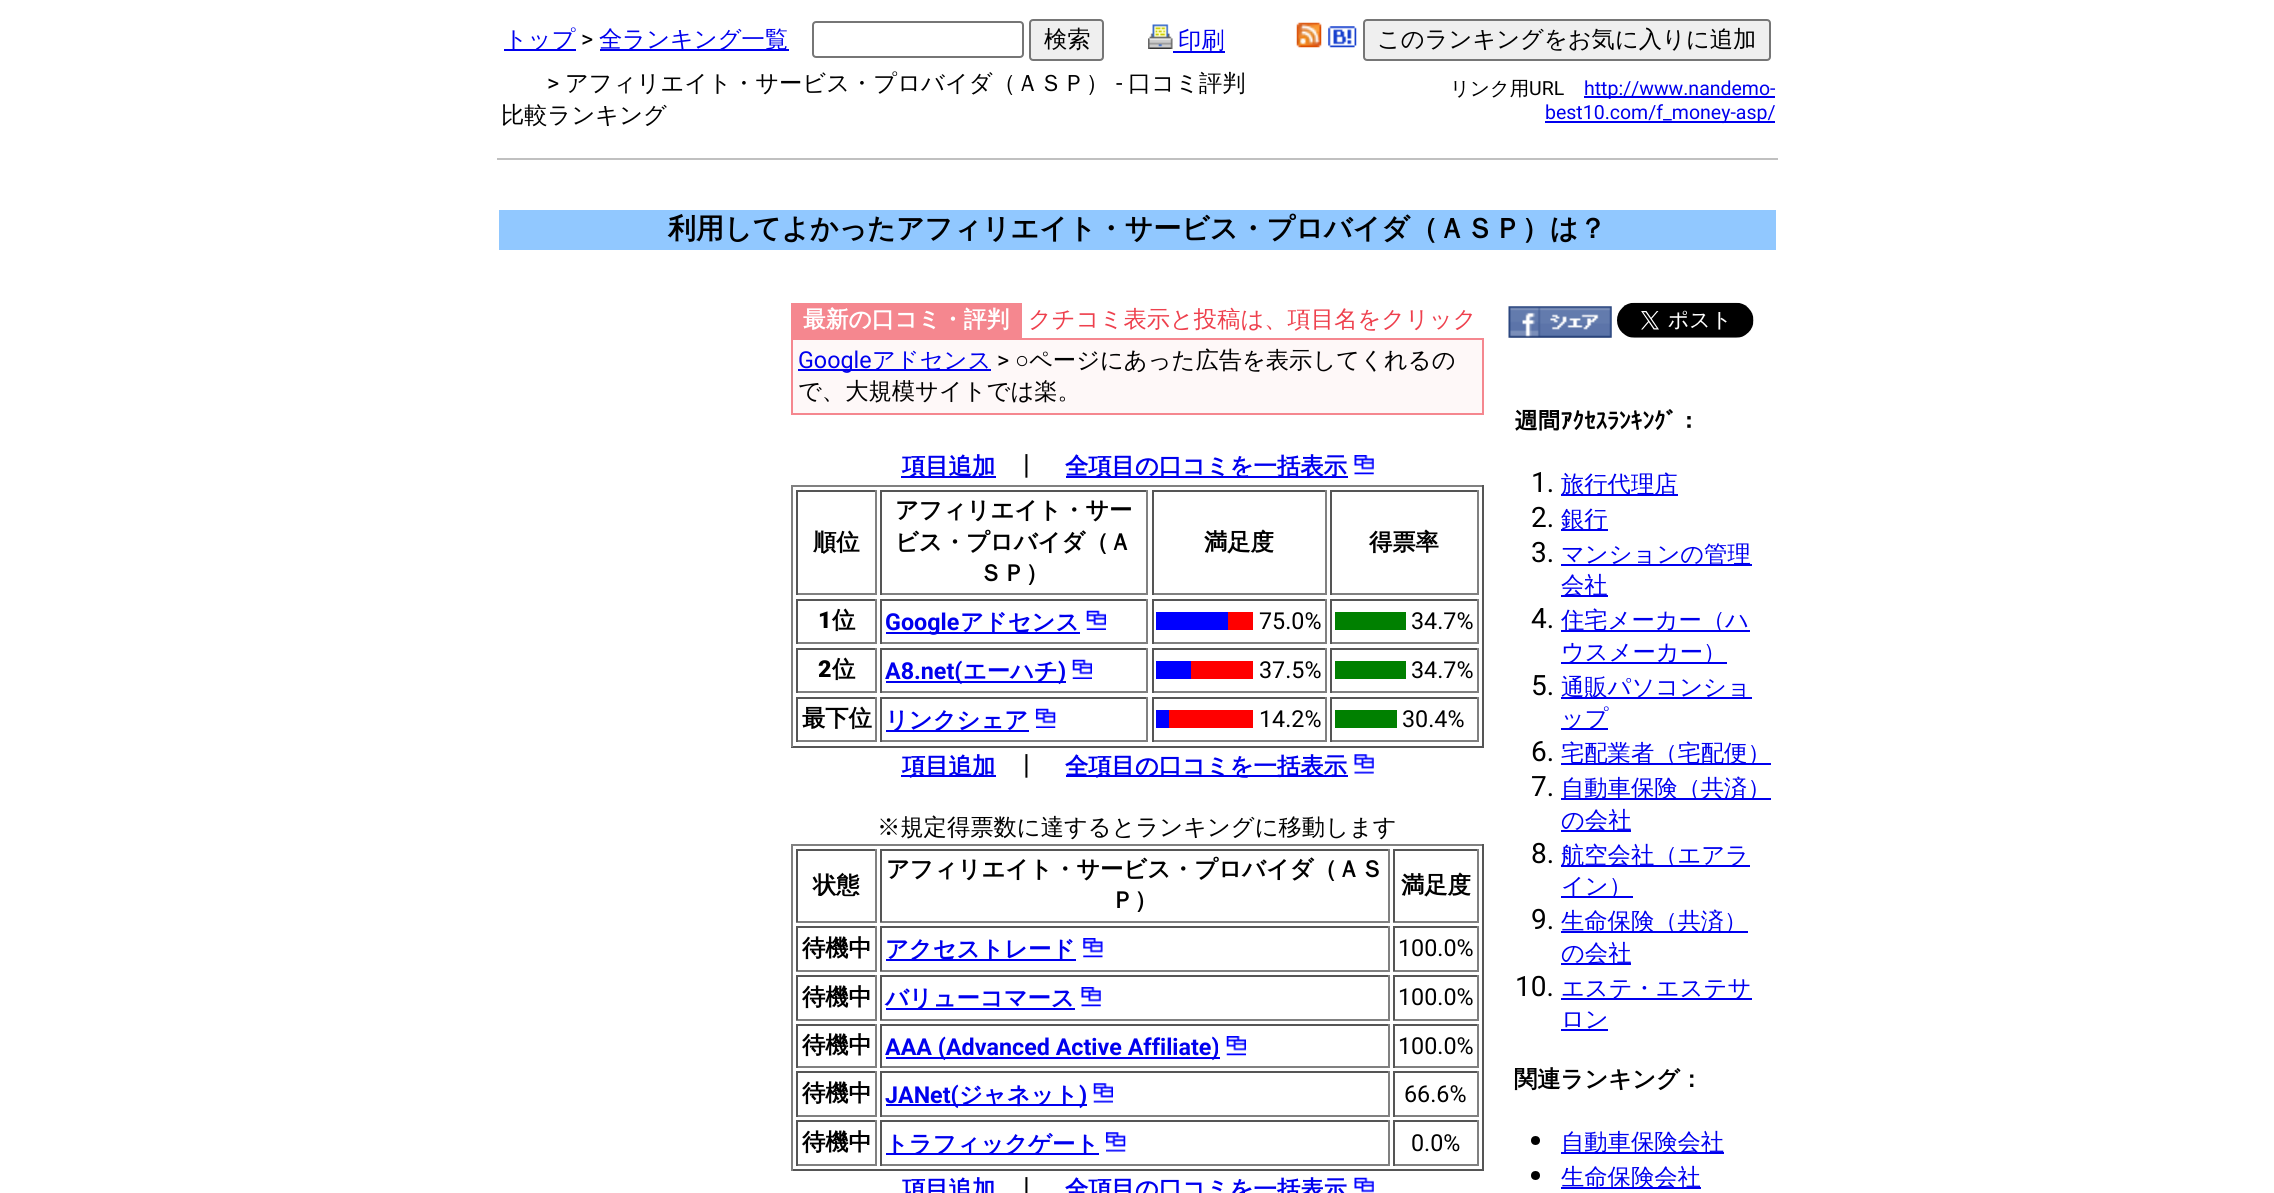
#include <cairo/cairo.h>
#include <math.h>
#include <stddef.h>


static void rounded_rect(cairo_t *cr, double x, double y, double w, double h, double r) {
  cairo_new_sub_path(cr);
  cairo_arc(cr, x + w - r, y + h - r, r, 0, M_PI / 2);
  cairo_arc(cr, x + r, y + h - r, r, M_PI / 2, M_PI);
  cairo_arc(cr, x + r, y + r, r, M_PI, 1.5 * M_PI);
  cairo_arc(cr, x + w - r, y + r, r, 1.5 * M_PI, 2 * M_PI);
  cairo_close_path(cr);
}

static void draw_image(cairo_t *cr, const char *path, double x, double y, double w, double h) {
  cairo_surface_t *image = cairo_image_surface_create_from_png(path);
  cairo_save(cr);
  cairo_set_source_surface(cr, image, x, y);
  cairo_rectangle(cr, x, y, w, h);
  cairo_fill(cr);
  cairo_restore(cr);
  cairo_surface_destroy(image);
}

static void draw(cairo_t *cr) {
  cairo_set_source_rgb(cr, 1, 1, 1);
  cairo_paint(cr);
  cairo_set_source_rgb(cr, 0, 0, 238 / 255.0);
  cairo_rectangle(cr, 504, 49, 72, 2);
  cairo_fill(cr);
  cairo_rectangle(cr, 600, 49, 189, 2);
  cairo_fill(cr);
  rounded_rect(cr, 813, 22, 210, 35, 3);
  cairo_set_source_rgb(cr, 118 / 255.0, 118 / 255.0, 118 / 255.0);
  cairo_stroke(cr);
  cairo_set_source_rgb(cr, 239 / 255.0, 239 / 255.0, 239 / 255.0);
  rounded_rect(cr, 1030, 20, 73, 40, 3);
  cairo_fill_preserve(cr);
  cairo_set_source_rgb(cr, 118 / 255.0, 118 / 255.0, 118 / 255.0);
  cairo_stroke(cr);
  draw_image(cr, "images/1.png", 1148, 24, 25, 25);
  cairo_set_source_rgb(cr, 0, 0, 238 / 255.0);
  cairo_rectangle(cr, 1173, 51, 52, 2);
  cairo_fill(cr);
  draw_image(cr, "images/2.png", 1296, 22, 26, 26);
  draw_image(cr, "images/3.png", 1328, 26, 29, 22);
  cairo_set_source_rgb(cr, 239 / 255.0, 239 / 255.0, 239 / 255.0);
  rounded_rect(cr, 1364, 20, 406, 40, 3);
  cairo_fill_preserve(cr);
  cairo_set_source_rgb(cr, 118 / 255.0, 118 / 255.0, 118 / 255.0);
  cairo_stroke(cr);
  cairo_set_source_rgb(cr, 0, 0, 238 / 255.0);
  cairo_rectangle(cr, 1584, 96, 191, 2);
  cairo_fill(cr);
  cairo_rectangle(cr, 1545, 121, 230, 2);
  cairo_fill(cr);
  cairo_set_source_rgb(cr, 192 / 255.0, 192 / 255.0, 192 / 255.0);
  cairo_rectangle(cr, 497, 158, 1281, 2);
  cairo_fill(cr);
  cairo_set_source_rgb(cr, 145 / 255.0, 200 / 255.0, 1);
  cairo_rectangle(cr, 499, 210, 1277, 40);
  cairo_fill(cr);
  cairo_set_source_rgb(cr, 245 / 255.0, 135 / 255.0, 143 / 255.0);
  cairo_rectangle(cr, 791, 303, 231, 35);
  cairo_fill(cr);
  cairo_rectangle(cr, 791, 338, 693, 77);
  cairo_fill(cr);
  cairo_set_source_rgb(cr, 254 / 255.0, 248 / 255.0, 248 / 255.0);
  cairo_rectangle(cr, 793, 340, 689, 73);
  cairo_fill(cr);
  cairo_set_source_rgb(cr, 0, 0, 238 / 255.0);
  cairo_rectangle(cr, 798, 369, 193, 2);
  cairo_fill(cr);
  cairo_rectangle(cr, 901, 476, 95, 2);
  cairo_fill(cr);
  cairo_rectangle(cr, 1066, 476, 282, 2);
  cairo_fill(cr);
  draw_image(cr, "images/4.png", 1354, 455, 20, 20);
  cairo_set_source_rgb(cr, 128 / 255.0, 128 / 255.0, 128 / 255.0);
  cairo_rectangle(cr, 791, 485, 693, 2);
  cairo_fill(cr);
  cairo_set_source_rgb(cr, 85 / 255.0, 85 / 255.0, 85 / 255.0);
  cairo_rectangle(cr, 1482, 485, 2, 262);
  cairo_fill(cr);
  cairo_rectangle(cr, 791, 746, 693, 2);
  cairo_fill(cr);
  cairo_set_source_rgb(cr, 128 / 255.0, 128 / 255.0, 128 / 255.0);
  cairo_rectangle(cr, 791, 485, 2, 262);
  cairo_fill(cr);
  cairo_set_source_rgb(cr, 85 / 255.0, 85 / 255.0, 85 / 255.0);
  cairo_rectangle(cr, 796, 490, 81, 2);
  cairo_fill(cr);
  cairo_set_source_rgb(cr, 128 / 255.0, 128 / 255.0, 128 / 255.0);
  cairo_rectangle(cr, 875, 490, 2, 105);
  cairo_fill(cr);
  cairo_rectangle(cr, 796, 593, 81, 2);
  cairo_fill(cr);
  cairo_set_source_rgb(cr, 85 / 255.0, 85 / 255.0, 85 / 255.0);
  cairo_rectangle(cr, 796, 490, 2, 105);
  cairo_fill(cr);
  cairo_rectangle(cr, 880, 490, 268, 2);
  cairo_fill(cr);
  cairo_set_source_rgb(cr, 128 / 255.0, 128 / 255.0, 128 / 255.0);
  cairo_rectangle(cr, 1146, 490, 2, 105);
  cairo_fill(cr);
  cairo_rectangle(cr, 880, 593, 268, 2);
  cairo_fill(cr);
  cairo_set_source_rgb(cr, 85 / 255.0, 85 / 255.0, 85 / 255.0);
  cairo_rectangle(cr, 880, 490, 2, 105);
  cairo_fill(cr);
  cairo_rectangle(cr, 1152, 490, 175, 2);
  cairo_fill(cr);
  cairo_set_source_rgb(cr, 128 / 255.0, 128 / 255.0, 128 / 255.0);
  cairo_rectangle(cr, 1325, 490, 2, 105);
  cairo_fill(cr);
  cairo_rectangle(cr, 1152, 593, 175, 2);
  cairo_fill(cr);
  cairo_set_source_rgb(cr, 85 / 255.0, 85 / 255.0, 85 / 255.0);
  cairo_rectangle(cr, 1152, 490, 2, 105);
  cairo_fill(cr);
  cairo_rectangle(cr, 1330, 490, 149, 2);
  cairo_fill(cr);
  cairo_set_source_rgb(cr, 128 / 255.0, 128 / 255.0, 128 / 255.0);
  cairo_rectangle(cr, 1477, 490, 2, 105);
  cairo_fill(cr);
  cairo_rectangle(cr, 1330, 593, 149, 2);
  cairo_fill(cr);
  cairo_set_source_rgb(cr, 85 / 255.0, 85 / 255.0, 85 / 255.0);
  cairo_rectangle(cr, 1330, 490, 2, 105);
  cairo_fill(cr);
  cairo_rectangle(cr, 796, 599, 81, 2);
  cairo_fill(cr);
  cairo_set_source_rgb(cr, 128 / 255.0, 128 / 255.0, 128 / 255.0);
  cairo_rectangle(cr, 875, 599, 2, 45);
  cairo_fill(cr);
  cairo_rectangle(cr, 796, 642, 81, 2);
  cairo_fill(cr);
  cairo_set_source_rgb(cr, 85 / 255.0, 85 / 255.0, 85 / 255.0);
  cairo_rectangle(cr, 796, 599, 2, 45);
  cairo_fill(cr);
  cairo_rectangle(cr, 880, 599, 268, 2);
  cairo_fill(cr);
  cairo_set_source_rgb(cr, 128 / 255.0, 128 / 255.0, 128 / 255.0);
  cairo_rectangle(cr, 1146, 599, 2, 45);
  cairo_fill(cr);
  cairo_rectangle(cr, 880, 642, 268, 2);
  cairo_fill(cr);
  cairo_set_source_rgb(cr, 85 / 255.0, 85 / 255.0, 85 / 255.0);
  cairo_rectangle(cr, 880, 599, 2, 45);
  cairo_fill(cr);
  cairo_set_source_rgb(cr, 0, 0, 238 / 255.0);
  cairo_rectangle(cr, 886, 632, 194, 2);
  cairo_fill(cr);
  draw_image(cr, "images/5.png", 1086, 610, 20, 20);
  cairo_set_source_rgb(cr, 85 / 255.0, 85 / 255.0, 85 / 255.0);
  cairo_rectangle(cr, 1152, 599, 175, 2);
  cairo_fill(cr);
  cairo_set_source_rgb(cr, 128 / 255.0, 128 / 255.0, 128 / 255.0);
  cairo_rectangle(cr, 1325, 599, 2, 45);
  cairo_fill(cr);
  cairo_rectangle(cr, 1152, 642, 175, 2);
  cairo_fill(cr);
  cairo_set_source_rgb(cr, 85 / 255.0, 85 / 255.0, 85 / 255.0);
  cairo_rectangle(cr, 1152, 599, 2, 45);
  cairo_fill(cr);
  cairo_set_source_rgb(cr, 0, 0, 1);
  cairo_rectangle(cr, 1156, 612, 72, 18);
  cairo_fill(cr);
  cairo_set_source_rgb(cr, 1, 0, 0);
  cairo_rectangle(cr, 1228, 612, 25, 18);
  cairo_fill(cr);
  cairo_set_source_rgb(cr, 85 / 255.0, 85 / 255.0, 85 / 255.0);
  cairo_rectangle(cr, 1330, 599, 149, 2);
  cairo_fill(cr);
  cairo_set_source_rgb(cr, 128 / 255.0, 128 / 255.0, 128 / 255.0);
  cairo_rectangle(cr, 1477, 599, 2, 45);
  cairo_fill(cr);
  cairo_rectangle(cr, 1330, 642, 149, 2);
  cairo_fill(cr);
  cairo_set_source_rgb(cr, 85 / 255.0, 85 / 255.0, 85 / 255.0);
  cairo_rectangle(cr, 1330, 599, 2, 45);
  cairo_fill(cr);
  cairo_set_source_rgb(cr, 0, 128 / 255.0, 0);
  cairo_rectangle(cr, 1335, 612, 71, 18);
  cairo_fill(cr);
  cairo_set_source_rgb(cr, 85 / 255.0, 85 / 255.0, 85 / 255.0);
  cairo_rectangle(cr, 796, 648, 81, 2);
  cairo_fill(cr);
  cairo_set_source_rgb(cr, 128 / 255.0, 128 / 255.0, 128 / 255.0);
  cairo_rectangle(cr, 875, 648, 2, 45);
  cairo_fill(cr);
  cairo_rectangle(cr, 796, 691, 81, 2);
  cairo_fill(cr);
  cairo_set_source_rgb(cr, 85 / 255.0, 85 / 255.0, 85 / 255.0);
  cairo_rectangle(cr, 796, 648, 2, 45);
  cairo_fill(cr);
  cairo_rectangle(cr, 880, 648, 268, 2);
  cairo_fill(cr);
  cairo_set_source_rgb(cr, 128 / 255.0, 128 / 255.0, 128 / 255.0);
  cairo_rectangle(cr, 1146, 648, 2, 45);
  cairo_fill(cr);
  cairo_rectangle(cr, 880, 691, 268, 2);
  cairo_fill(cr);
  cairo_set_source_rgb(cr, 85 / 255.0, 85 / 255.0, 85 / 255.0);
  cairo_rectangle(cr, 880, 648, 2, 45);
  cairo_fill(cr);
  cairo_set_source_rgb(cr, 0, 0, 238 / 255.0);
  cairo_rectangle(cr, 886, 681, 180, 2);
  cairo_fill(cr);
  draw_image(cr, "images/5.png", 1072, 659, 20, 20);
  cairo_set_source_rgb(cr, 85 / 255.0, 85 / 255.0, 85 / 255.0);
  cairo_rectangle(cr, 1152, 648, 175, 2);
  cairo_fill(cr);
  cairo_set_source_rgb(cr, 128 / 255.0, 128 / 255.0, 128 / 255.0);
  cairo_rectangle(cr, 1325, 648, 2, 45);
  cairo_fill(cr);
  cairo_rectangle(cr, 1152, 691, 175, 2);
  cairo_fill(cr);
  cairo_set_source_rgb(cr, 85 / 255.0, 85 / 255.0, 85 / 255.0);
  cairo_rectangle(cr, 1152, 648, 2, 45);
  cairo_fill(cr);
  cairo_set_source_rgb(cr, 0, 0, 1);
  cairo_rectangle(cr, 1156, 661, 35, 18);
  cairo_fill(cr);
  cairo_set_source_rgb(cr, 1, 0, 0);
  cairo_rectangle(cr, 1191, 661, 62, 18);
  cairo_fill(cr);
  cairo_set_source_rgb(cr, 85 / 255.0, 85 / 255.0, 85 / 255.0);
  cairo_rectangle(cr, 1330, 648, 149, 2);
  cairo_fill(cr);
  cairo_set_source_rgb(cr, 128 / 255.0, 128 / 255.0, 128 / 255.0);
  cairo_rectangle(cr, 1477, 648, 2, 45);
  cairo_fill(cr);
  cairo_rectangle(cr, 1330, 691, 149, 2);
  cairo_fill(cr);
  cairo_set_source_rgb(cr, 85 / 255.0, 85 / 255.0, 85 / 255.0);
  cairo_rectangle(cr, 1330, 648, 2, 45);
  cairo_fill(cr);
  cairo_set_source_rgb(cr, 0, 128 / 255.0, 0);
  cairo_rectangle(cr, 1335, 661, 71, 18);
  cairo_fill(cr);
  cairo_set_source_rgb(cr, 85 / 255.0, 85 / 255.0, 85 / 255.0);
  cairo_rectangle(cr, 796, 697, 81, 2);
  cairo_fill(cr);
  cairo_set_source_rgb(cr, 128 / 255.0, 128 / 255.0, 128 / 255.0);
  cairo_rectangle(cr, 875, 697, 2, 45);
  cairo_fill(cr);
  cairo_rectangle(cr, 796, 740, 81, 2);
  cairo_fill(cr);
  cairo_set_source_rgb(cr, 85 / 255.0, 85 / 255.0, 85 / 255.0);
  cairo_rectangle(cr, 796, 697, 2, 45);
  cairo_fill(cr);
  cairo_rectangle(cr, 880, 697, 268, 2);
  cairo_fill(cr);
  cairo_set_source_rgb(cr, 128 / 255.0, 128 / 255.0, 128 / 255.0);
  cairo_rectangle(cr, 1146, 697, 2, 45);
  cairo_fill(cr);
  cairo_rectangle(cr, 880, 740, 268, 2);
  cairo_fill(cr);
  cairo_set_source_rgb(cr, 85 / 255.0, 85 / 255.0, 85 / 255.0);
  cairo_rectangle(cr, 880, 697, 2, 45);
  cairo_fill(cr);
  cairo_set_source_rgb(cr, 0, 0, 238 / 255.0);
  cairo_rectangle(cr, 886, 730, 143, 2);
  cairo_fill(cr);
  draw_image(cr, "images/6.png", 1036, 708, 20, 20);
  cairo_set_source_rgb(cr, 85 / 255.0, 85 / 255.0, 85 / 255.0);
  cairo_rectangle(cr, 1152, 697, 175, 2);
  cairo_fill(cr);
  cairo_set_source_rgb(cr, 128 / 255.0, 128 / 255.0, 128 / 255.0);
  cairo_rectangle(cr, 1325, 697, 2, 45);
  cairo_fill(cr);
  cairo_rectangle(cr, 1152, 740, 175, 2);
  cairo_fill(cr);
  cairo_set_source_rgb(cr, 85 / 255.0, 85 / 255.0, 85 / 255.0);
  cairo_rectangle(cr, 1152, 697, 2, 45);
  cairo_fill(cr);
  cairo_set_source_rgb(cr, 0, 0, 1);
  cairo_rectangle(cr, 1156, 710, 13, 18);
  cairo_fill(cr);
  cairo_set_source_rgb(cr, 1, 0, 0);
  cairo_rectangle(cr, 1169, 710, 84, 18);
  cairo_fill(cr);
  cairo_set_source_rgb(cr, 85 / 255.0, 85 / 255.0, 85 / 255.0);
  cairo_rectangle(cr, 1330, 697, 149, 2);
  cairo_fill(cr);
  cairo_set_source_rgb(cr, 128 / 255.0, 128 / 255.0, 128 / 255.0);
  cairo_rectangle(cr, 1477, 697, 2, 45);
  cairo_fill(cr);
  cairo_rectangle(cr, 1330, 740, 149, 2);
  cairo_fill(cr);
  cairo_set_source_rgb(cr, 85 / 255.0, 85 / 255.0, 85 / 255.0);
  cairo_rectangle(cr, 1330, 697, 2, 45);
  cairo_fill(cr);
  cairo_set_source_rgb(cr, 0, 128 / 255.0, 0);
  cairo_rectangle(cr, 1335, 710, 62, 18);
  cairo_fill(cr);
  cairo_set_source_rgb(cr, 0, 0, 238 / 255.0);
  cairo_rectangle(cr, 901, 775, 95, 2);
  cairo_fill(cr);
  cairo_rectangle(cr, 1066, 775, 282, 2);
  cairo_fill(cr);
  draw_image(cr, "images/7.png", 1354, 754, 20, 20);
  cairo_set_source_rgb(cr, 128 / 255.0, 128 / 255.0, 128 / 255.0);
  cairo_rectangle(cr, 791, 844, 693, 2);
  cairo_fill(cr);
  cairo_set_source_rgb(cr, 85 / 255.0, 85 / 255.0, 85 / 255.0);
  cairo_rectangle(cr, 1482, 844, 2, 327);
  cairo_fill(cr);
  cairo_rectangle(cr, 791, 1169, 693, 2);
  cairo_fill(cr);
  cairo_set_source_rgb(cr, 128 / 255.0, 128 / 255.0, 128 / 255.0);
  cairo_rectangle(cr, 791, 844, 2, 327);
  cairo_fill(cr);
  cairo_set_source_rgb(cr, 85 / 255.0, 85 / 255.0, 85 / 255.0);
  cairo_rectangle(cr, 796, 849, 81, 2);
  cairo_fill(cr);
  cairo_set_source_rgb(cr, 128 / 255.0, 128 / 255.0, 128 / 255.0);
  cairo_rectangle(cr, 875, 849, 2, 73);
  cairo_fill(cr);
  cairo_rectangle(cr, 796, 921, 81, 2);
  cairo_fill(cr);
  cairo_set_source_rgb(cr, 85 / 255.0, 85 / 255.0, 85 / 255.0);
  cairo_rectangle(cr, 796, 849, 2, 73);
  cairo_fill(cr);
  cairo_rectangle(cr, 880, 849, 510, 2);
  cairo_fill(cr);
  cairo_set_source_rgb(cr, 128 / 255.0, 128 / 255.0, 128 / 255.0);
  cairo_rectangle(cr, 1388, 849, 2, 73);
  cairo_fill(cr);
  cairo_rectangle(cr, 880, 921, 510, 2);
  cairo_fill(cr);
  cairo_set_source_rgb(cr, 85 / 255.0, 85 / 255.0, 85 / 255.0);
  cairo_rectangle(cr, 880, 849, 2, 73);
  cairo_fill(cr);
  cairo_rectangle(cr, 1393, 849, 86, 2);
  cairo_fill(cr);
  cairo_set_source_rgb(cr, 128 / 255.0, 128 / 255.0, 128 / 255.0);
  cairo_rectangle(cr, 1477, 849, 2, 73);
  cairo_fill(cr);
  cairo_rectangle(cr, 1393, 921, 86, 2);
  cairo_fill(cr);
  cairo_set_source_rgb(cr, 85 / 255.0, 85 / 255.0, 85 / 255.0);
  cairo_rectangle(cr, 1393, 849, 2, 73);
  cairo_fill(cr);
  cairo_rectangle(cr, 796, 926, 81, 2);
  cairo_fill(cr);
  cairo_set_source_rgb(cr, 128 / 255.0, 128 / 255.0, 128 / 255.0);
  cairo_rectangle(cr, 875, 926, 2, 45);
  cairo_fill(cr);
  cairo_rectangle(cr, 796, 970, 81, 2);
  cairo_fill(cr);
  cairo_set_source_rgb(cr, 85 / 255.0, 85 / 255.0, 85 / 255.0);
  cairo_rectangle(cr, 796, 926, 2, 45);
  cairo_fill(cr);
  cairo_rectangle(cr, 880, 926, 510, 2);
  cairo_fill(cr);
  cairo_set_source_rgb(cr, 128 / 255.0, 128 / 255.0, 128 / 255.0);
  cairo_rectangle(cr, 1388, 926, 2, 45);
  cairo_fill(cr);
  cairo_rectangle(cr, 880, 970, 510, 2);
  cairo_fill(cr);
  cairo_set_source_rgb(cr, 85 / 255.0, 85 / 255.0, 85 / 255.0);
  cairo_rectangle(cr, 880, 926, 2, 45);
  cairo_fill(cr);
  cairo_set_source_rgb(cr, 0, 0, 238 / 255.0);
  cairo_rectangle(cr, 886, 959, 190, 2);
  cairo_fill(cr);
  draw_image(cr, "images/8.png", 1083, 938, 20, 20);
  cairo_set_source_rgb(cr, 85 / 255.0, 85 / 255.0, 85 / 255.0);
  cairo_rectangle(cr, 1393, 926, 86, 2);
  cairo_fill(cr);
  cairo_set_source_rgb(cr, 128 / 255.0, 128 / 255.0, 128 / 255.0);
  cairo_rectangle(cr, 1477, 926, 2, 45);
  cairo_fill(cr);
  cairo_rectangle(cr, 1393, 970, 86, 2);
  cairo_fill(cr);
  cairo_set_source_rgb(cr, 85 / 255.0, 85 / 255.0, 85 / 255.0);
  cairo_rectangle(cr, 1393, 926, 2, 45);
  cairo_fill(cr);
  cairo_rectangle(cr, 796, 975, 81, 2);
  cairo_fill(cr);
  cairo_set_source_rgb(cr, 128 / 255.0, 128 / 255.0, 128 / 255.0);
  cairo_rectangle(cr, 875, 975, 2, 45);
  cairo_fill(cr);
  cairo_rectangle(cr, 796, 1019, 81, 2);
  cairo_fill(cr);
  cairo_set_source_rgb(cr, 85 / 255.0, 85 / 255.0, 85 / 255.0);
  cairo_rectangle(cr, 796, 975, 2, 45);
  cairo_fill(cr);
  cairo_rectangle(cr, 880, 975, 510, 2);
  cairo_fill(cr);
  cairo_set_source_rgb(cr, 128 / 255.0, 128 / 255.0, 128 / 255.0);
  cairo_rectangle(cr, 1388, 975, 2, 45);
  cairo_fill(cr);
  cairo_rectangle(cr, 880, 1019, 510, 2);
  cairo_fill(cr);
  cairo_set_source_rgb(cr, 85 / 255.0, 85 / 255.0, 85 / 255.0);
  cairo_rectangle(cr, 880, 975, 2, 45);
  cairo_fill(cr);
  cairo_set_source_rgb(cr, 0, 0, 238 / 255.0);
  cairo_rectangle(cr, 886, 1008, 189, 2);
  cairo_fill(cr);
  draw_image(cr, "images/4.png", 1081, 987, 20, 20);
  cairo_set_source_rgb(cr, 85 / 255.0, 85 / 255.0, 85 / 255.0);
  cairo_rectangle(cr, 1393, 975, 86, 2);
  cairo_fill(cr);
  cairo_set_source_rgb(cr, 128 / 255.0, 128 / 255.0, 128 / 255.0);
  cairo_rectangle(cr, 1477, 975, 2, 45);
  cairo_fill(cr);
  cairo_rectangle(cr, 1393, 1019, 86, 2);
  cairo_fill(cr);
  cairo_set_source_rgb(cr, 85 / 255.0, 85 / 255.0, 85 / 255.0);
  cairo_rectangle(cr, 1393, 975, 2, 45);
  cairo_fill(cr);
  cairo_rectangle(cr, 796, 1024, 81, 2);
  cairo_fill(cr);
  cairo_set_source_rgb(cr, 128 / 255.0, 128 / 255.0, 128 / 255.0);
  cairo_rectangle(cr, 875, 1024, 2, 44);
  cairo_fill(cr);
  cairo_rectangle(cr, 796, 1066, 81, 2);
  cairo_fill(cr);
  cairo_set_source_rgb(cr, 85 / 255.0, 85 / 255.0, 85 / 255.0);
  cairo_rectangle(cr, 796, 1024, 2, 44);
  cairo_fill(cr);
  cairo_rectangle(cr, 880, 1024, 510, 2);
  cairo_fill(cr);
  cairo_set_source_rgb(cr, 128 / 255.0, 128 / 255.0, 128 / 255.0);
  cairo_rectangle(cr, 1388, 1024, 2, 44);
  cairo_fill(cr);
  cairo_rectangle(cr, 880, 1066, 510, 2);
  cairo_fill(cr);
  cairo_set_source_rgb(cr, 85 / 255.0, 85 / 255.0, 85 / 255.0);
  cairo_rectangle(cr, 880, 1024, 2, 44);
  cairo_fill(cr);
  cairo_set_source_rgb(cr, 0, 0, 238 / 255.0);
  cairo_rectangle(cr, 886, 1057, 334, 2);
  cairo_fill(cr);
  draw_image(cr, "images/9.png", 1226, 1036, 20, 20);
  cairo_set_source_rgb(cr, 85 / 255.0, 85 / 255.0, 85 / 255.0);
  cairo_rectangle(cr, 1393, 1024, 86, 2);
  cairo_fill(cr);
  cairo_set_source_rgb(cr, 128 / 255.0, 128 / 255.0, 128 / 255.0);
  cairo_rectangle(cr, 1477, 1024, 2, 44);
  cairo_fill(cr);
  cairo_rectangle(cr, 1393, 1066, 86, 2);
  cairo_fill(cr);
  cairo_set_source_rgb(cr, 85 / 255.0, 85 / 255.0, 85 / 255.0);
  cairo_rectangle(cr, 1393, 1024, 2, 44);
  cairo_fill(cr);
  cairo_rectangle(cr, 796, 1071, 81, 2);
  cairo_fill(cr);
  cairo_set_source_rgb(cr, 128 / 255.0, 128 / 255.0, 128 / 255.0);
  cairo_rectangle(cr, 875, 1071, 2, 46);
  cairo_fill(cr);
  cairo_rectangle(cr, 796, 1115, 81, 2);
  cairo_fill(cr);
  cairo_set_source_rgb(cr, 85 / 255.0, 85 / 255.0, 85 / 255.0);
  cairo_rectangle(cr, 796, 1071, 2, 46);
  cairo_fill(cr);
  cairo_rectangle(cr, 880, 1071, 510, 2);
  cairo_fill(cr);
  cairo_set_source_rgb(cr, 128 / 255.0, 128 / 255.0, 128 / 255.0);
  cairo_rectangle(cr, 1388, 1071, 2, 46);
  cairo_fill(cr);
  cairo_rectangle(cr, 880, 1115, 510, 2);
  cairo_fill(cr);
  cairo_set_source_rgb(cr, 85 / 255.0, 85 / 255.0, 85 / 255.0);
  cairo_rectangle(cr, 880, 1071, 2, 46);
  cairo_fill(cr);
  cairo_set_source_rgb(cr, 0, 0, 238 / 255.0);
  cairo_rectangle(cr, 886, 1104, 201, 2);
  cairo_fill(cr);
  draw_image(cr, "images/10.png", 1093, 1083, 20, 20);
  cairo_set_source_rgb(cr, 85 / 255.0, 85 / 255.0, 85 / 255.0);
  cairo_rectangle(cr, 1393, 1071, 86, 2);
  cairo_fill(cr);
  cairo_set_source_rgb(cr, 128 / 255.0, 128 / 255.0, 128 / 255.0);
  cairo_rectangle(cr, 1477, 1071, 2, 46);
  cairo_fill(cr);
  cairo_rectangle(cr, 1393, 1115, 86, 2);
  cairo_fill(cr);
  cairo_set_source_rgb(cr, 85 / 255.0, 85 / 255.0, 85 / 255.0);
  cairo_rectangle(cr, 1393, 1071, 2, 46);
  cairo_fill(cr);
  cairo_rectangle(cr, 796, 1120, 81, 2);
  cairo_fill(cr);
  cairo_set_source_rgb(cr, 128 / 255.0, 128 / 255.0, 128 / 255.0);
  cairo_rectangle(cr, 875, 1120, 2, 46);
  cairo_fill(cr);
  cairo_rectangle(cr, 796, 1164, 81, 2);
  cairo_fill(cr);
  cairo_set_source_rgb(cr, 85 / 255.0, 85 / 255.0, 85 / 255.0);
  cairo_rectangle(cr, 796, 1120, 2, 46);
  cairo_fill(cr);
  cairo_rectangle(cr, 880, 1120, 510, 2);
  cairo_fill(cr);
  cairo_set_source_rgb(cr, 128 / 255.0, 128 / 255.0, 128 / 255.0);
  cairo_rectangle(cr, 1388, 1120, 2, 46);
  cairo_fill(cr);
  cairo_rectangle(cr, 880, 1164, 510, 2);
  cairo_fill(cr);
  cairo_set_source_rgb(cr, 85 / 255.0, 85 / 255.0, 85 / 255.0);
  cairo_rectangle(cr, 880, 1120, 2, 46);
  cairo_fill(cr);
  cairo_set_source_rgb(cr, 0, 0, 238 / 255.0);
  cairo_rectangle(cr, 886, 1153, 213, 2);
  cairo_fill(cr);
  draw_image(cr, "images/11.png", 1106, 1132, 20, 20);
  cairo_set_source_rgb(cr, 85 / 255.0, 85 / 255.0, 85 / 255.0);
  cairo_rectangle(cr, 1393, 1120, 86, 2);
  cairo_fill(cr);
  cairo_set_source_rgb(cr, 128 / 255.0, 128 / 255.0, 128 / 255.0);
  cairo_rectangle(cr, 1477, 1120, 2, 46);
  cairo_fill(cr);
  cairo_rectangle(cr, 1393, 1164, 86, 2);
  cairo_fill(cr);
  cairo_set_source_rgb(cr, 85 / 255.0, 85 / 255.0, 85 / 255.0);
  cairo_rectangle(cr, 1393, 1120, 2, 46);
  cairo_fill(cr);
  draw_image(cr, "images/12.png", 1354, 1177, 20, 16);
  draw_image(cr, "images/13.png", 1508, 306, 104, 32);
  draw_image(cr, "images/14.png", 1617, 302, 137, 36);
  cairo_set_source_rgb(cr, 0, 0, 238 / 255.0);
  cairo_rectangle(cr, 1561, 494, 117, 2);
  cairo_fill(cr);
  cairo_rectangle(cr, 1561, 529, 47, 2);
  cairo_fill(cr);
  cairo_rectangle(cr, 1561, 564, 191, 2);
  cairo_fill(cr);
  cairo_rectangle(cr, 1561, 595, 47, 2);
  cairo_fill(cr);
  cairo_rectangle(cr, 1561, 630, 189, 2);
  cairo_fill(cr);
  cairo_rectangle(cr, 1561, 662, 166, 2);
  cairo_fill(cr);
  cairo_rectangle(cr, 1561, 697, 191, 2);
  cairo_fill(cr);
  cairo_rectangle(cr, 1561, 728, 47, 2);
  cairo_fill(cr);
  cairo_rectangle(cr, 1561, 763, 210, 2);
  cairo_fill(cr);
  cairo_rectangle(cr, 1561, 798, 210, 2);
  cairo_fill(cr);
  cairo_rectangle(cr, 1561, 830, 70, 2);
  cairo_fill(cr);
  cairo_rectangle(cr, 1561, 865, 189, 2);
  cairo_fill(cr);
  cairo_rectangle(cr, 1561, 896, 72, 2);
  cairo_fill(cr);
  cairo_rectangle(cr, 1561, 931, 187, 2);
  cairo_fill(cr);
  cairo_rectangle(cr, 1561, 963, 70, 2);
  cairo_fill(cr);
  cairo_rectangle(cr, 1561, 998, 191, 2);
  cairo_fill(cr);
  cairo_rectangle(cr, 1561, 1029, 47, 2);
  cairo_fill(cr);
  cairo_set_source_rgb(cr, 0, 0, 0);
  cairo_arc(cr, 1535.5, 1140.5, 4.5, 0, 2 * M_PI);
  cairo_fill(cr);
  cairo_set_source_rgb(cr, 0, 0, 238 / 255.0);
  cairo_rectangle(cr, 1561, 1152, 163, 2);
  cairo_fill(cr);
  cairo_set_source_rgb(cr, 0, 0, 0);
  cairo_arc(cr, 1535.5, 1175.5, 4.5, 0, 2 * M_PI);
  cairo_fill(cr);
  cairo_set_source_rgb(cr, 0, 0, 238 / 255.0);
  cairo_rectangle(cr, 1561, 1187, 140, 2);
  cairo_fill(cr);
  cairo_select_font_face(cr, "WenQuanYi Zen Hei Medium", CAIRO_FONT_SLANT_NORMAL, CAIRO_FONT_WEIGHT_NORMAL);
  cairo_set_font_size(cr, 23.3);
  cairo_move_to(cr, 504, 47);
  cairo_show_text(cr, "トップ");
  cairo_select_font_face(cr, "Roboto", CAIRO_FONT_SLANT_NORMAL, CAIRO_FONT_WEIGHT_NORMAL);
  cairo_set_source_rgb(cr, 0, 0, 0);
  cairo_move_to(cr, 581, 47);
  cairo_show_text(cr, ">");
  cairo_select_font_face(cr, "WenQuanYi Zen Hei Medium", CAIRO_FONT_SLANT_NORMAL, CAIRO_FONT_WEIGHT_NORMAL);
  cairo_set_source_rgb(cr, 0, 0, 238 / 255.0);
  cairo_move_to(cr, 599, 47);
  cairo_show_text(cr, "全ランキング一覧");
  cairo_set_source_rgb(cr, 0, 0, 0);
  cairo_move_to(cr, 1044, 47);
  cairo_show_text(cr, "検索");
  cairo_set_source_rgb(cr, 0, 0, 238 / 255.0);
  cairo_move_to(cr, 1178, 48);
  cairo_show_text(cr, "印刷");
  cairo_set_source_rgb(cr, 0, 0, 0);
  cairo_move_to(cr, 1377, 47);
  cairo_show_text(cr, "このランキングをお気に入りに追加");
  cairo_select_font_face(cr, "Roboto", CAIRO_FONT_SLANT_NORMAL, CAIRO_FONT_WEIGHT_NORMAL);
  cairo_move_to(cr, 547, 91);
  cairo_show_text(cr, ">");
  cairo_select_font_face(cr, "WenQuanYi Zen Hei Medium", CAIRO_FONT_SLANT_NORMAL, CAIRO_FONT_WEIGHT_NORMAL);
  cairo_move_to(cr, 565, 91);
  cairo_show_text(cr, "アフィリエイト・サービス・プロバイダ（ＡＳＰ）");
  cairo_select_font_face(cr, "Roboto", CAIRO_FONT_SLANT_NORMAL, CAIRO_FONT_WEIGHT_NORMAL);
  cairo_move_to(cr, 1116, 91);
  cairo_show_text(cr, "-");
  cairo_select_font_face(cr, "WenQuanYi Zen Hei Medium", CAIRO_FONT_SLANT_NORMAL, CAIRO_FONT_WEIGHT_NORMAL);
  cairo_move_to(cr, 1128, 91);
  cairo_show_text(cr, "口コミ評判");
  cairo_move_to(cr, 501, 123);
  cairo_show_text(cr, "比較ランキング");
  cairo_set_font_size(cr, 19.5);
  cairo_move_to(cr, 1450, 95);
  cairo_show_text(cr, "リンク用");
  cairo_select_font_face(cr, "Roboto", CAIRO_FONT_SLANT_NORMAL, CAIRO_FONT_WEIGHT_NORMAL);
  cairo_move_to(cr, 1529, 95);
  cairo_show_text(cr, "URL");
  cairo_set_source_rgb(cr, 0, 0, 238 / 255.0);
  cairo_move_to(cr, 1584, 95);
  cairo_show_text(cr, "http://www.nandemo-");
  cairo_move_to(cr, 1545, 119);
  cairo_show_text(cr, "best10.com/f_money-asp/");
  cairo_select_font_face(cr, "WenQuanYi Zen Hei", CAIRO_FONT_SLANT_NORMAL, CAIRO_FONT_WEIGHT_BOLD);
  cairo_set_font_size(cr, 28);
  cairo_set_source_rgb(cr, 0, 0, 0);
  cairo_move_to(cr, 668, 238);
  cairo_show_text(cr, "利用してよかったアフィリエイト・サービス・プロバイダ（ＡＳＰ）は？");
  cairo_set_font_size(cr, 22.75);
  cairo_set_source_rgb(cr, 1, 1, 1);
  cairo_move_to(cr, 803, 327);
  cairo_show_text(cr, "最新の口コミ・評判");
  cairo_select_font_face(cr, "WenQuanYi Zen Hei Medium", CAIRO_FONT_SLANT_NORMAL, CAIRO_FONT_WEIGHT_NORMAL);
  cairo_set_font_size(cr, 23.3);
  cairo_set_source_rgb(cr, 238 / 255.0, 64 / 255.0, 77 / 255.0);
  cairo_move_to(cr, 1028, 327);
  cairo_show_text(cr, "クチコミ表示と投稿は、項目名をクリック");
  cairo_select_font_face(cr, "Roboto", CAIRO_FONT_SLANT_NORMAL, CAIRO_FONT_WEIGHT_NORMAL);
  cairo_set_source_rgb(cr, 0, 0, 238 / 255.0);
  cairo_move_to(cr, 798, 368);
  cairo_show_text(cr, "Google");
  cairo_select_font_face(cr, "WenQuanYi Zen Hei Medium", CAIRO_FONT_SLANT_NORMAL, CAIRO_FONT_WEIGHT_NORMAL);
  cairo_move_to(cr, 872, 368);
  cairo_show_text(cr, "アドセンス");
  cairo_select_font_face(cr, "Roboto", CAIRO_FONT_SLANT_NORMAL, CAIRO_FONT_WEIGHT_NORMAL);
  cairo_set_source_rgb(cr, 0, 0, 0);
  cairo_move_to(cr, 997, 368);
  cairo_show_text(cr, ">");
  cairo_select_font_face(cr, "Liberation Sans", CAIRO_FONT_SLANT_NORMAL, CAIRO_FONT_WEIGHT_NORMAL);
  cairo_move_to(cr, 1015, 368);
  cairo_show_text(cr, "○");
  cairo_select_font_face(cr, "WenQuanYi Zen Hei Medium", CAIRO_FONT_SLANT_NORMAL, CAIRO_FONT_WEIGHT_NORMAL);
  cairo_move_to(cr, 1029, 368);
  cairo_show_text(cr, "ページにあった広告を表示してくれるの");
  cairo_move_to(cr, 798, 399);
  cairo_show_text(cr, "で、大規模サイトでは楽。");
  cairo_select_font_face(cr, "WenQuanYi Zen Hei", CAIRO_FONT_SLANT_NORMAL, CAIRO_FONT_WEIGHT_BOLD);
  cairo_set_source_rgb(cr, 0, 0, 238 / 255.0);
  cairo_move_to(cr, 902, 474);
  cairo_show_text(cr, "項目追加");
  cairo_select_font_face(cr, "Roboto", CAIRO_FONT_SLANT_NORMAL, CAIRO_FONT_WEIGHT_NORMAL);
  cairo_set_font_size(cr, 28);
  cairo_set_source_rgb(cr, 0, 0, 0);
  cairo_move_to(cr, 1023, 474);
  cairo_show_text(cr, "|");
  cairo_select_font_face(cr, "WenQuanYi Zen Hei", CAIRO_FONT_SLANT_NORMAL, CAIRO_FONT_WEIGHT_BOLD);
  cairo_set_font_size(cr, 23.3);
  cairo_set_source_rgb(cr, 0, 0, 238 / 255.0);
  cairo_move_to(cr, 1065, 474);
  cairo_show_text(cr, "全項目の口コミを一括表示");
  cairo_set_source_rgb(cr, 0, 0, 0);
  cairo_move_to(cr, 813, 550);
  cairo_show_text(cr, "順位");
  cairo_move_to(cr, 895, 518);
  cairo_show_text(cr, "アフィリエイト・サー");
  cairo_move_to(cr, 895, 550);
  cairo_show_text(cr, "ビス・プロバイダ（Ａ");
  cairo_move_to(cr, 979, 581);
  cairo_show_text(cr, "ＳＰ）");
  cairo_move_to(cr, 1204, 550);
  cairo_show_text(cr, "満足度");
  cairo_move_to(cr, 1369, 550);
  cairo_show_text(cr, "得票率");
  cairo_select_font_face(cr, "Roboto Black", CAIRO_FONT_SLANT_NORMAL, CAIRO_FONT_WEIGHT_NORMAL);
  cairo_move_to(cr, 818, 628);
  cairo_show_text(cr, "1");
  cairo_select_font_face(cr, "WenQuanYi Zen Hei", CAIRO_FONT_SLANT_NORMAL, CAIRO_FONT_WEIGHT_BOLD);
  cairo_move_to(cr, 832, 628);
  cairo_show_text(cr, "位");
  cairo_select_font_face(cr, "Roboto", CAIRO_FONT_SLANT_NORMAL, CAIRO_FONT_WEIGHT_BOLD);
  cairo_set_source_rgb(cr, 0, 0, 238 / 255.0);
  cairo_move_to(cr, 885, 630);
  cairo_show_text(cr, "Google");
  cairo_select_font_face(cr, "WenQuanYi Zen Hei", CAIRO_FONT_SLANT_NORMAL, CAIRO_FONT_WEIGHT_BOLD);
  cairo_move_to(cr, 960, 630);
  cairo_show_text(cr, "アドセンス");
  cairo_select_font_face(cr, "Roboto", CAIRO_FONT_SLANT_NORMAL, CAIRO_FONT_WEIGHT_NORMAL);
  cairo_set_source_rgb(cr, 0, 0, 0);
  cairo_move_to(cr, 1259, 629);
  cairo_show_text(cr, "75.0%");
  cairo_move_to(cr, 1411, 629);
  cairo_show_text(cr, "34.7%");
  cairo_select_font_face(cr, "Roboto Black", CAIRO_FONT_SLANT_NORMAL, CAIRO_FONT_WEIGHT_NORMAL);
  cairo_move_to(cr, 818, 677);
  cairo_show_text(cr, "2");
  cairo_select_font_face(cr, "WenQuanYi Zen Hei", CAIRO_FONT_SLANT_NORMAL, CAIRO_FONT_WEIGHT_BOLD);
  cairo_move_to(cr, 832, 677);
  cairo_show_text(cr, "位");
  cairo_select_font_face(cr, "Roboto", CAIRO_FONT_SLANT_NORMAL, CAIRO_FONT_WEIGHT_BOLD);
  cairo_set_source_rgb(cr, 0, 0, 238 / 255.0);
  cairo_move_to(cr, 885, 679);
  cairo_show_text(cr, "A8.net(");
  cairo_select_font_face(cr, "WenQuanYi Zen Hei", CAIRO_FONT_SLANT_NORMAL, CAIRO_FONT_WEIGHT_BOLD);
  cairo_move_to(cr, 963, 679);
  cairo_show_text(cr, "エーハチ");
  cairo_select_font_face(cr, "Roboto", CAIRO_FONT_SLANT_NORMAL, CAIRO_FONT_WEIGHT_BOLD);
  cairo_move_to(cr, 1058, 679);
  cairo_show_text(cr, ")");
  cairo_select_font_face(cr, "Roboto", CAIRO_FONT_SLANT_NORMAL, CAIRO_FONT_WEIGHT_NORMAL);
  cairo_set_source_rgb(cr, 0, 0, 0);
  cairo_move_to(cr, 1259, 678);
  cairo_show_text(cr, "37.5%");
  cairo_move_to(cr, 1411, 678);
  cairo_show_text(cr, "34.7%");
  cairo_select_font_face(cr, "WenQuanYi Zen Hei", CAIRO_FONT_SLANT_NORMAL, CAIRO_FONT_WEIGHT_BOLD);
  cairo_move_to(cr, 802, 726);
  cairo_show_text(cr, "最下位");
  cairo_set_source_rgb(cr, 0, 0, 238 / 255.0);
  cairo_move_to(cr, 885, 728);
  cairo_show_text(cr, "リンクシェア");
  cairo_select_font_face(cr, "Roboto", CAIRO_FONT_SLANT_NORMAL, CAIRO_FONT_WEIGHT_NORMAL);
  cairo_set_source_rgb(cr, 0, 0, 0);
  cairo_move_to(cr, 1259, 727);
  cairo_show_text(cr, "14.2%");
  cairo_move_to(cr, 1402, 727);
  cairo_show_text(cr, "30.4%");
  cairo_select_font_face(cr, "WenQuanYi Zen Hei", CAIRO_FONT_SLANT_NORMAL, CAIRO_FONT_WEIGHT_BOLD);
  cairo_set_source_rgb(cr, 0, 0, 238 / 255.0);
  cairo_move_to(cr, 902, 774);
  cairo_show_text(cr, "項目追加");
  cairo_select_font_face(cr, "Roboto", CAIRO_FONT_SLANT_NORMAL, CAIRO_FONT_WEIGHT_NORMAL);
  cairo_set_font_size(cr, 28);
  cairo_set_source_rgb(cr, 0, 0, 0);
  cairo_move_to(cr, 1023, 774);
  cairo_show_text(cr, "|");
  cairo_select_font_face(cr, "WenQuanYi Zen Hei", CAIRO_FONT_SLANT_NORMAL, CAIRO_FONT_WEIGHT_BOLD);
  cairo_set_font_size(cr, 23.3);
  cairo_set_source_rgb(cr, 0, 0, 238 / 255.0);
  cairo_move_to(cr, 1065, 774);
  cairo_show_text(cr, "全項目の口コミを一括表示");
  cairo_select_font_face(cr, "WenQuanYi Zen Hei Medium", CAIRO_FONT_SLANT_NORMAL, CAIRO_FONT_WEIGHT_NORMAL);
  cairo_set_source_rgb(cr, 0, 0, 0);
  cairo_move_to(cr, 877, 835);
  cairo_show_text(cr, "※規定得票数に達するとランキングに移動します");
  cairo_select_font_face(cr, "WenQuanYi Zen Hei", CAIRO_FONT_SLANT_NORMAL, CAIRO_FONT_WEIGHT_BOLD);
  cairo_move_to(cr, 813, 893);
  cairo_show_text(cr, "状態");
  cairo_move_to(cr, 886, 877);
  cairo_show_text(cr, "アフィリエイト・サービス・プロバイダ（ＡＳ");
  cairo_move_to(cr, 1111, 908);
  cairo_show_text(cr, "Ｐ）");
  cairo_move_to(cr, 1401, 893);
  cairo_show_text(cr, "満足度");
  cairo_move_to(cr, 802, 956);
  cairo_show_text(cr, "待機中");
  cairo_set_source_rgb(cr, 0, 0, 238 / 255.0);
  cairo_move_to(cr, 885, 957);
  cairo_show_text(cr, "アクセストレード");
  cairo_select_font_face(cr, "Roboto", CAIRO_FONT_SLANT_NORMAL, CAIRO_FONT_WEIGHT_NORMAL);
  cairo_set_source_rgb(cr, 0, 0, 0);
  cairo_move_to(cr, 1398, 956);
  cairo_show_text(cr, "100.0%");
  cairo_select_font_face(cr, "WenQuanYi Zen Hei", CAIRO_FONT_SLANT_NORMAL, CAIRO_FONT_WEIGHT_BOLD);
  cairo_move_to(cr, 802, 1005);
  cairo_show_text(cr, "待機中");
  cairo_set_source_rgb(cr, 0, 0, 238 / 255.0);
  cairo_move_to(cr, 885, 1006);
  cairo_show_text(cr, "バリューコマース");
  cairo_select_font_face(cr, "Roboto", CAIRO_FONT_SLANT_NORMAL, CAIRO_FONT_WEIGHT_NORMAL);
  cairo_set_source_rgb(cr, 0, 0, 0);
  cairo_move_to(cr, 1398, 1005);
  cairo_show_text(cr, "100.0%");
  cairo_select_font_face(cr, "WenQuanYi Zen Hei", CAIRO_FONT_SLANT_NORMAL, CAIRO_FONT_WEIGHT_BOLD);
  cairo_move_to(cr, 802, 1053);
  cairo_show_text(cr, "待機中");
  cairo_select_font_face(cr, "Roboto", CAIRO_FONT_SLANT_NORMAL, CAIRO_FONT_WEIGHT_BOLD);
  cairo_set_source_rgb(cr, 0, 0, 238 / 255.0);
  cairo_move_to(cr, 885, 1055);
  cairo_show_text(cr, "AAA (Advanced Active Affiliate)");
  cairo_select_font_face(cr, "Roboto", CAIRO_FONT_SLANT_NORMAL, CAIRO_FONT_WEIGHT_NORMAL);
  cairo_set_source_rgb(cr, 0, 0, 0);
  cairo_move_to(cr, 1398, 1054);
  cairo_show_text(cr, "100.0%");
  cairo_select_font_face(cr, "WenQuanYi Zen Hei", CAIRO_FONT_SLANT_NORMAL, CAIRO_FONT_WEIGHT_BOLD);
  cairo_move_to(cr, 802, 1101);
  cairo_show_text(cr, "待機中");
  cairo_select_font_face(cr, "Roboto", CAIRO_FONT_SLANT_NORMAL, CAIRO_FONT_WEIGHT_BOLD);
  cairo_set_source_rgb(cr, 0, 0, 238 / 255.0);
  cairo_move_to(cr, 885, 1103);
  cairo_show_text(cr, "JANet(");
  cairo_select_font_face(cr, "WenQuanYi Zen Hei", CAIRO_FONT_SLANT_NORMAL, CAIRO_FONT_WEIGHT_BOLD);
  cairo_move_to(cr, 959, 1103);
  cairo_show_text(cr, "ジャネット");
  cairo_select_font_face(cr, "Roboto", CAIRO_FONT_SLANT_NORMAL, CAIRO_FONT_WEIGHT_BOLD);
  cairo_move_to(cr, 1079, 1103);
  cairo_show_text(cr, ")");
  cairo_select_font_face(cr, "Roboto", CAIRO_FONT_SLANT_NORMAL, CAIRO_FONT_WEIGHT_NORMAL);
  cairo_set_source_rgb(cr, 0, 0, 0);
  cairo_move_to(cr, 1404, 1102);
  cairo_show_text(cr, "66.6%");
  cairo_select_font_face(cr, "WenQuanYi Zen Hei", CAIRO_FONT_SLANT_NORMAL, CAIRO_FONT_WEIGHT_BOLD);
  cairo_move_to(cr, 802, 1150);
  cairo_show_text(cr, "待機中");
  cairo_set_source_rgb(cr, 0, 0, 238 / 255.0);
  cairo_move_to(cr, 885, 1152);
  cairo_show_text(cr, "トラフィックゲート");
  cairo_select_font_face(cr, "Roboto", CAIRO_FONT_SLANT_NORMAL, CAIRO_FONT_WEIGHT_NORMAL);
  cairo_set_source_rgb(cr, 0, 0, 0);
  cairo_move_to(cr, 1411, 1151);
  cairo_show_text(cr, "0.0%");
  cairo_select_font_face(cr, "WenQuanYi Zen Hei", CAIRO_FONT_SLANT_NORMAL, CAIRO_FONT_WEIGHT_BOLD);
  cairo_set_source_rgb(cr, 0, 0, 238 / 255.0);
  cairo_move_to(cr, 902, 1197);
  cairo_show_text(cr, "項目追加");
  cairo_select_font_face(cr, "Roboto", CAIRO_FONT_SLANT_NORMAL, CAIRO_FONT_WEIGHT_NORMAL);
  cairo_set_font_size(cr, 28);
  cairo_set_source_rgb(cr, 0, 0, 0);
  cairo_move_to(cr, 1023, 1197);
  cairo_show_text(cr, "|");
  cairo_select_font_face(cr, "WenQuanYi Zen Hei", CAIRO_FONT_SLANT_NORMAL, CAIRO_FONT_WEIGHT_BOLD);
  cairo_set_font_size(cr, 23.3);
  cairo_set_source_rgb(cr, 0, 0, 238 / 255.0);
  cairo_move_to(cr, 1065, 1197);
  cairo_show_text(cr, "全項目の口コミを一括表示");
  cairo_select_font_face(cr, "IPAGothic", CAIRO_FONT_SLANT_NORMAL, CAIRO_FONT_WEIGHT_BOLD);
  cairo_set_source_rgb(cr, 0, 0, 0);
  cairo_move_to(cr, 1514, 429);
  cairo_show_text(cr, "週間ｱｸｾｽﾗﾝｷﾝｸﾞ：");
  cairo_select_font_face(cr, "Roboto", CAIRO_FONT_SLANT_NORMAL, CAIRO_FONT_WEIGHT_NORMAL);
  cairo_set_font_size(cr, 28);
  cairo_move_to(cr, 1531, 492);
  cairo_show_text(cr, "1.");
  cairo_select_font_face(cr, "WenQuanYi Zen Hei Medium", CAIRO_FONT_SLANT_NORMAL, CAIRO_FONT_WEIGHT_NORMAL);
  cairo_set_font_size(cr, 23.3);
  cairo_set_source_rgb(cr, 0, 0, 238 / 255.0);
  cairo_move_to(cr, 1561, 492);
  cairo_show_text(cr, "旅行代理店");
  cairo_select_font_face(cr, "Roboto", CAIRO_FONT_SLANT_NORMAL, CAIRO_FONT_WEIGHT_NORMAL);
  cairo_set_font_size(cr, 28);
  cairo_set_source_rgb(cr, 0, 0, 0);
  cairo_move_to(cr, 1531, 527);
  cairo_show_text(cr, "2.");
  cairo_select_font_face(cr, "WenQuanYi Zen Hei Medium", CAIRO_FONT_SLANT_NORMAL, CAIRO_FONT_WEIGHT_NORMAL);
  cairo_set_font_size(cr, 23.3);
  cairo_set_source_rgb(cr, 0, 0, 238 / 255.0);
  cairo_move_to(cr, 1561, 527);
  cairo_show_text(cr, "銀行");
  cairo_select_font_face(cr, "Roboto", CAIRO_FONT_SLANT_NORMAL, CAIRO_FONT_WEIGHT_NORMAL);
  cairo_set_font_size(cr, 28);
  cairo_set_source_rgb(cr, 0, 0, 0);
  cairo_move_to(cr, 1531, 562);
  cairo_show_text(cr, "3.");
  cairo_select_font_face(cr, "WenQuanYi Zen Hei Medium", CAIRO_FONT_SLANT_NORMAL, CAIRO_FONT_WEIGHT_NORMAL);
  cairo_set_font_size(cr, 23.3);
  cairo_set_source_rgb(cr, 0, 0, 238 / 255.0);
  cairo_move_to(cr, 1561, 562);
  cairo_show_text(cr, "マンションの管理");
  cairo_move_to(cr, 1561, 593);
  cairo_show_text(cr, "会社");
  cairo_select_font_face(cr, "Roboto", CAIRO_FONT_SLANT_NORMAL, CAIRO_FONT_WEIGHT_NORMAL);
  cairo_set_font_size(cr, 28);
  cairo_set_source_rgb(cr, 0, 0, 0);
  cairo_move_to(cr, 1531, 628);
  cairo_show_text(cr, "4.");
  cairo_select_font_face(cr, "WenQuanYi Zen Hei Medium", CAIRO_FONT_SLANT_NORMAL, CAIRO_FONT_WEIGHT_NORMAL);
  cairo_set_font_size(cr, 23.3);
  cairo_set_source_rgb(cr, 0, 0, 238 / 255.0);
  cairo_move_to(cr, 1561, 628);
  cairo_show_text(cr, "住宅メーカー（ハ");
  cairo_move_to(cr, 1561, 660);
  cairo_show_text(cr, "ウスメーカー）");
  cairo_select_font_face(cr, "Roboto", CAIRO_FONT_SLANT_NORMAL, CAIRO_FONT_WEIGHT_NORMAL);
  cairo_set_font_size(cr, 28);
  cairo_set_source_rgb(cr, 0, 0, 0);
  cairo_move_to(cr, 1531, 695);
  cairo_show_text(cr, "5.");
  cairo_select_font_face(cr, "WenQuanYi Zen Hei Medium", CAIRO_FONT_SLANT_NORMAL, CAIRO_FONT_WEIGHT_NORMAL);
  cairo_set_font_size(cr, 23.3);
  cairo_set_source_rgb(cr, 0, 0, 238 / 255.0);
  cairo_move_to(cr, 1561, 695);
  cairo_show_text(cr, "通販パソコンショ");
  cairo_move_to(cr, 1561, 726);
  cairo_show_text(cr, "ップ");
  cairo_select_font_face(cr, "Roboto", CAIRO_FONT_SLANT_NORMAL, CAIRO_FONT_WEIGHT_NORMAL);
  cairo_set_font_size(cr, 28);
  cairo_set_source_rgb(cr, 0, 0, 0);
  cairo_move_to(cr, 1531, 761);
  cairo_show_text(cr, "6.");
  cairo_select_font_face(cr, "WenQuanYi Zen Hei Medium", CAIRO_FONT_SLANT_NORMAL, CAIRO_FONT_WEIGHT_NORMAL);
  cairo_set_font_size(cr, 23.3);
  cairo_set_source_rgb(cr, 0, 0, 238 / 255.0);
  cairo_move_to(cr, 1561, 761);
  cairo_show_text(cr, "宅配業者（宅配便）");
  cairo_select_font_face(cr, "Roboto", CAIRO_FONT_SLANT_NORMAL, CAIRO_FONT_WEIGHT_NORMAL);
  cairo_set_font_size(cr, 28);
  cairo_set_source_rgb(cr, 0, 0, 0);
  cairo_move_to(cr, 1531, 796);
  cairo_show_text(cr, "7.");
  cairo_select_font_face(cr, "WenQuanYi Zen Hei Medium", CAIRO_FONT_SLANT_NORMAL, CAIRO_FONT_WEIGHT_NORMAL);
  cairo_set_font_size(cr, 23.3);
  cairo_set_source_rgb(cr, 0, 0, 238 / 255.0);
  cairo_move_to(cr, 1561, 796);
  cairo_show_text(cr, "自動車保険（共済）");
  cairo_move_to(cr, 1561, 828);
  cairo_show_text(cr, "の会社");
  cairo_select_font_face(cr, "Roboto", CAIRO_FONT_SLANT_NORMAL, CAIRO_FONT_WEIGHT_NORMAL);
  cairo_set_font_size(cr, 28);
  cairo_set_source_rgb(cr, 0, 0, 0);
  cairo_move_to(cr, 1531, 863);
  cairo_show_text(cr, "8.");
  cairo_select_font_face(cr, "WenQuanYi Zen Hei Medium", CAIRO_FONT_SLANT_NORMAL, CAIRO_FONT_WEIGHT_NORMAL);
  cairo_set_font_size(cr, 23.3);
  cairo_set_source_rgb(cr, 0, 0, 238 / 255.0);
  cairo_move_to(cr, 1561, 863);
  cairo_show_text(cr, "航空会社（エアラ");
  cairo_move_to(cr, 1561, 894);
  cairo_show_text(cr, "イン）");
  cairo_select_font_face(cr, "Roboto", CAIRO_FONT_SLANT_NORMAL, CAIRO_FONT_WEIGHT_NORMAL);
  cairo_set_font_size(cr, 28);
  cairo_set_source_rgb(cr, 0, 0, 0);
  cairo_move_to(cr, 1531, 929);
  cairo_show_text(cr, "9.");
  cairo_select_font_face(cr, "WenQuanYi Zen Hei Medium", CAIRO_FONT_SLANT_NORMAL, CAIRO_FONT_WEIGHT_NORMAL);
  cairo_set_font_size(cr, 23.3);
  cairo_set_source_rgb(cr, 0, 0, 238 / 255.0);
  cairo_move_to(cr, 1561, 929);
  cairo_show_text(cr, "生命保険（共済）");
  cairo_move_to(cr, 1561, 961);
  cairo_show_text(cr, "の会社");
  cairo_select_font_face(cr, "Roboto", CAIRO_FONT_SLANT_NORMAL, CAIRO_FONT_WEIGHT_NORMAL);
  cairo_set_font_size(cr, 28);
  cairo_set_source_rgb(cr, 0, 0, 0);
  cairo_move_to(cr, 1515, 996);
  cairo_show_text(cr, "10.");
  cairo_select_font_face(cr, "WenQuanYi Zen Hei Medium", CAIRO_FONT_SLANT_NORMAL, CAIRO_FONT_WEIGHT_NORMAL);
  cairo_set_font_size(cr, 23.3);
  cairo_set_source_rgb(cr, 0, 0, 238 / 255.0);
  cairo_move_to(cr, 1561, 996);
  cairo_show_text(cr, "エステ・エステサ");
  cairo_move_to(cr, 1561, 1027);
  cairo_show_text(cr, "ロン");
  cairo_select_font_face(cr, "WenQuanYi Zen Hei", CAIRO_FONT_SLANT_NORMAL, CAIRO_FONT_WEIGHT_BOLD);
  cairo_set_source_rgb(cr, 0, 0, 0);
  cairo_move_to(cr, 1514, 1087);
  cairo_show_text(cr, "関連ランキング：");
  cairo_select_font_face(cr, "WenQuanYi Zen Hei Medium", CAIRO_FONT_SLANT_NORMAL, CAIRO_FONT_WEIGHT_NORMAL);
  cairo_set_source_rgb(cr, 0, 0, 238 / 255.0);
  cairo_move_to(cr, 1561, 1150);
  cairo_show_text(cr, "自動車保険会社");
  cairo_move_to(cr, 1561, 1185);
  cairo_show_text(cr, "生命保険会社");
}

int main(void) {
  cairo_surface_t *surface = cairo_image_surface_create(CAIRO_FORMAT_RGB24, 2274, 1193);
  cairo_t *cr = cairo_create(surface);
  cairo_font_options_t *options = cairo_font_options_create();
  cairo_font_options_set_hint_metrics(options, CAIRO_HINT_METRICS_OFF);
  cairo_font_options_set_hint_style(options, CAIRO_HINT_STYLE_NONE);
  cairo_set_font_options(cr, options);
  cairo_set_miter_limit(cr, 4);
  draw(cr);
  cairo_surface_write_to_png(surface, "out.png");
  cairo_font_options_destroy(options);
  cairo_destroy(cr);
  cairo_surface_destroy(surface);
  return 0;
}
